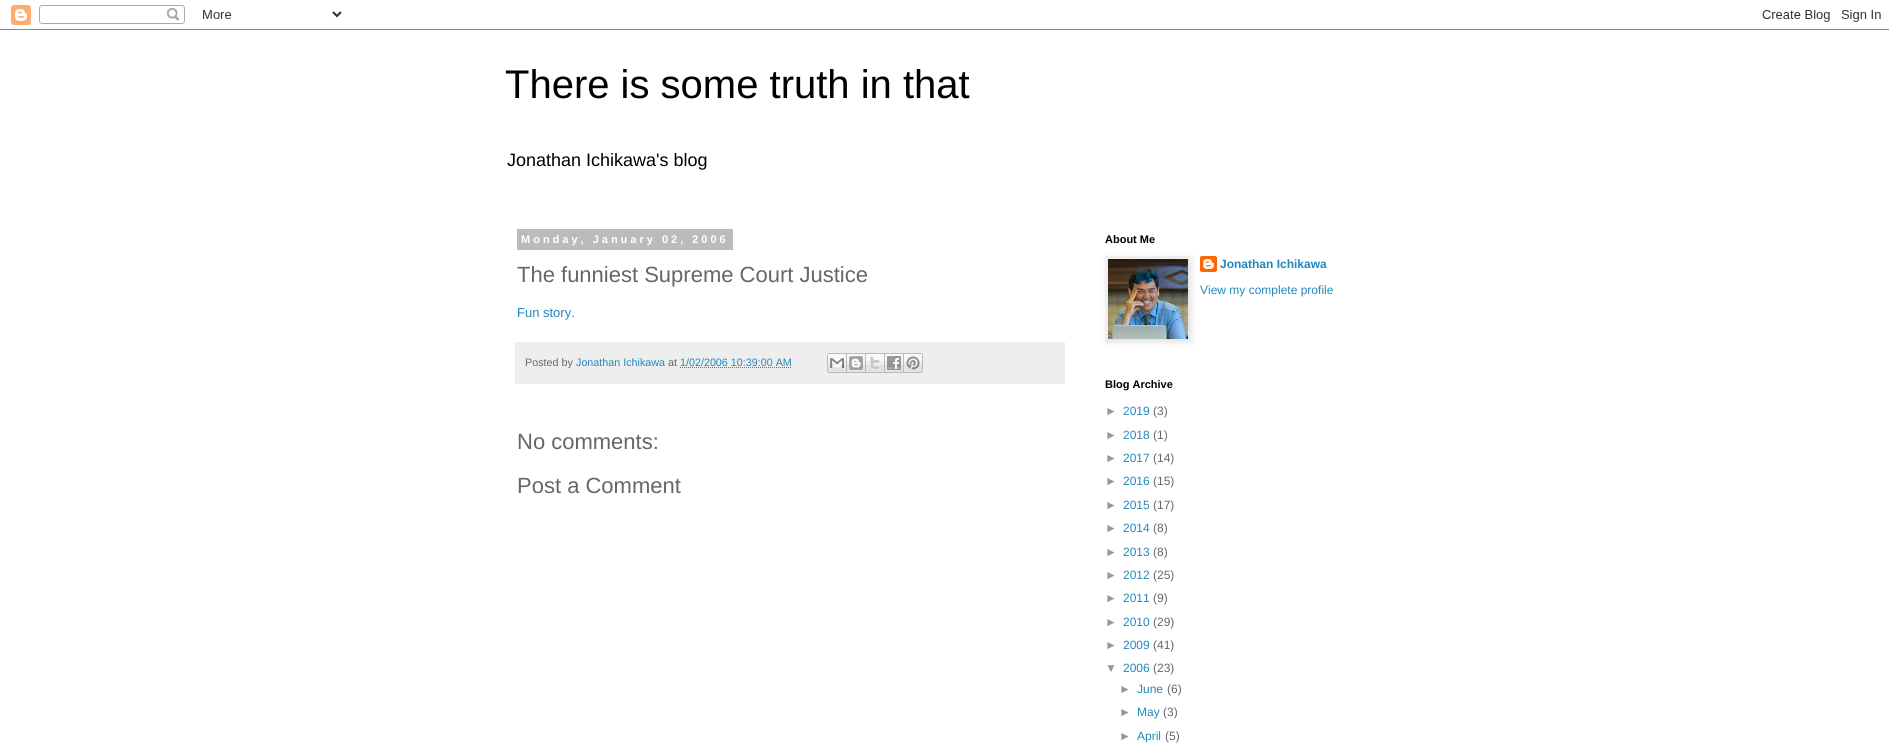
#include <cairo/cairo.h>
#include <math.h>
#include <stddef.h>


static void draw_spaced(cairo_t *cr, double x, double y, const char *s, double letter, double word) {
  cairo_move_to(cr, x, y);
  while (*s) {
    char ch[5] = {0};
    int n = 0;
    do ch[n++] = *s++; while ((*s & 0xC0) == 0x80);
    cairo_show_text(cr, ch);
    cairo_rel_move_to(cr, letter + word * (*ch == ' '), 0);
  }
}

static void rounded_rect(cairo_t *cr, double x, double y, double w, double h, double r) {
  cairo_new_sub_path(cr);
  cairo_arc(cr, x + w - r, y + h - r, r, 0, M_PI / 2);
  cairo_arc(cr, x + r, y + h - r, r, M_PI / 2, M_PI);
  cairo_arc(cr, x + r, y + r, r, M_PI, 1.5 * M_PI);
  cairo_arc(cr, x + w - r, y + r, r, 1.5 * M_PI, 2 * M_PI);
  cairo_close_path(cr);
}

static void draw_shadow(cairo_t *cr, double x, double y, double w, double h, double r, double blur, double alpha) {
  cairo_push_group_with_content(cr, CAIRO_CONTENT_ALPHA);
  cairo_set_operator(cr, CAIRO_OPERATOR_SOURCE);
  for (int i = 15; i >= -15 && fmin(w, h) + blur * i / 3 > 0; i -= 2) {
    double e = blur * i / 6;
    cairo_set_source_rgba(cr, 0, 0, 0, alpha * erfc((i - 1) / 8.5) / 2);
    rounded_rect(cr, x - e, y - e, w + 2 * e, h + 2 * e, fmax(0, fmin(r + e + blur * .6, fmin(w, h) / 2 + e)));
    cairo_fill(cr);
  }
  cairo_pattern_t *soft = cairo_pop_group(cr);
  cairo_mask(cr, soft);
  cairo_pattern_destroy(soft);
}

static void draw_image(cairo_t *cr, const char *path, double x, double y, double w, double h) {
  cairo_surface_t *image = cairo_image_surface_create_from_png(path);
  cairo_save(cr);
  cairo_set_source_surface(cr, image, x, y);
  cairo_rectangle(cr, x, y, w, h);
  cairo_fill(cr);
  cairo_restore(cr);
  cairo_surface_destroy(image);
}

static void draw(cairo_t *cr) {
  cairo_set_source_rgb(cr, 1, 1, 1);
  cairo_paint(cr);
  draw_image(cr, "images/1.png", 0, 5, 1889, 25);
  cairo_set_source_rgb(cr, 187 / 255.0, 187 / 255.0, 187 / 255.0);
  cairo_rectangle(cr, 517, 229, 216, 21);
  cairo_fill(cr);
  cairo_set_source_rgb(cr, 238 / 255.0, 238 / 255.0, 238 / 255.0);
  cairo_rectangle(cr, 515, 342, 550, 42);
  cairo_fill(cr);
  cairo_new_path(cr);
  cairo_move_to(cr, 680, 367.5);
  cairo_line_to(cr, 792, 367.5);
  cairo_set_source_rgb(cr, 34 / 255.0, 136 / 255.0, 187 / 255.0);
  cairo_set_line_width(cr, 1);
  cairo_set_dash(cr, (double[]){1, 1}, 2, 0);
  cairo_stroke(cr);
  draw_image(cr, "images/2.png", 827, 353, 20, 20);
  draw_image(cr, "images/3.png", 847, 353, 19, 20);
  draw_image(cr, "images/4.png", 866, 353, 19, 20);
  draw_image(cr, "images/5.png", 885, 353, 19, 20);
  draw_image(cr, "images/6.png", 904, 353, 19, 20);
  draw_image(cr, "images/8.png", 1200, 256, 17, 16);
  cairo_set_source_rgb(cr, 0, 0, 0);
  draw_shadow(cr, 1106, 257, 86, 86, 0, 2.5, 0.1);
  cairo_rectangle(cr, 1105.5, 256.5, 85, 85);
  cairo_set_source_rgb(cr, 238 / 255.0, 238 / 255.0, 238 / 255.0);
  cairo_set_dash(cr, NULL, 0, 0);
  cairo_stroke(cr);
  draw_image(cr, "images/7.png", 1108, 259, 80, 80);
  cairo_select_font_face(cr, "Liberation Sans", CAIRO_FONT_SLANT_NORMAL, CAIRO_FONT_WEIGHT_NORMAL);
  cairo_set_font_size(cr, 40);
  cairo_set_source_rgb(cr, 0, 0, 0);
  cairo_move_to(cr, 505, 98);
  cairo_show_text(cr, "There is some truth in that");
  cairo_set_font_size(cr, 18);
  cairo_move_to(cr, 507, 166);
  cairo_show_text(cr, "Jonathan Ichikawa's blog");
  cairo_select_font_face(cr, "Liberation Sans", CAIRO_FONT_SLANT_NORMAL, CAIRO_FONT_WEIGHT_BOLD);
  cairo_set_font_size(cr, 11);
  cairo_set_source_rgb(cr, 1, 1, 1);
  draw_spaced(cr, 521, 243, "Monday, January 02, 2006", 3, 0);
  cairo_select_font_face(cr, "Liberation Sans", CAIRO_FONT_SLANT_NORMAL, CAIRO_FONT_WEIGHT_NORMAL);
  cairo_set_font_size(cr, 22);
  cairo_set_source_rgb(cr, 102 / 255.0, 102 / 255.0, 102 / 255.0);
  cairo_move_to(cr, 517, 282);
  cairo_show_text(cr, "The funniest Supreme Court Justice");
  cairo_set_font_size(cr, 13);
  cairo_set_source_rgb(cr, 34 / 255.0, 136 / 255.0, 187 / 255.0);
  cairo_move_to(cr, 517, 317);
  cairo_show_text(cr, "Fun story.");
  cairo_set_font_size(cr, 10.75);
  cairo_set_source_rgb(cr, 102 / 255.0, 102 / 255.0, 102 / 255.0);
  cairo_move_to(cr, 525, 366);
  cairo_show_text(cr, "Posted by");
  cairo_set_source_rgb(cr, 34 / 255.0, 136 / 255.0, 187 / 255.0);
  cairo_move_to(cr, 576, 366);
  cairo_show_text(cr, "Jonathan Ichikawa");
  cairo_set_source_rgb(cr, 102 / 255.0, 102 / 255.0, 102 / 255.0);
  cairo_move_to(cr, 668, 366);
  cairo_show_text(cr, "at");
  cairo_set_source_rgb(cr, 34 / 255.0, 136 / 255.0, 187 / 255.0);
  cairo_move_to(cr, 680, 366);
  cairo_show_text(cr, "1/02/2006 10:39:00 AM");
  cairo_set_font_size(cr, 22);
  cairo_set_source_rgb(cr, 102 / 255.0, 102 / 255.0, 102 / 255.0);
  cairo_move_to(cr, 517, 449);
  cairo_show_text(cr, "No comments:");
  cairo_move_to(cr, 517, 493);
  cairo_show_text(cr, "Post a Comment");
  cairo_select_font_face(cr, "Liberation Sans", CAIRO_FONT_SLANT_NORMAL, CAIRO_FONT_WEIGHT_BOLD);
  cairo_set_font_size(cr, 11);
  cairo_set_source_rgb(cr, 0, 0, 0);
  cairo_move_to(cr, 1105, 243);
  cairo_show_text(cr, "About Me");
  cairo_set_font_size(cr, 12);
  cairo_set_source_rgb(cr, 34 / 255.0, 136 / 255.0, 187 / 255.0);
  cairo_move_to(cr, 1220, 268);
  cairo_show_text(cr, "Jonathan Ichikawa");
  cairo_select_font_face(cr, "Liberation Sans", CAIRO_FONT_SLANT_NORMAL, CAIRO_FONT_WEIGHT_NORMAL);
  cairo_move_to(cr, 1200, 294);
  cairo_show_text(cr, "View my complete profile");
  cairo_select_font_face(cr, "Liberation Sans", CAIRO_FONT_SLANT_NORMAL, CAIRO_FONT_WEIGHT_BOLD);
  cairo_set_font_size(cr, 11);
  cairo_set_source_rgb(cr, 0, 0, 0);
  cairo_move_to(cr, 1105, 388);
  cairo_show_text(cr, "Blog Archive");
  cairo_select_font_face(cr, "Liberation Sans", CAIRO_FONT_SLANT_NORMAL, CAIRO_FONT_WEIGHT_NORMAL);
  cairo_set_font_size(cr, 12);
  cairo_set_source_rgb(cr, 153 / 255.0, 153 / 255.0, 153 / 255.0);
  cairo_move_to(cr, 1105, 415);
  cairo_show_text(cr, "►");
  cairo_set_source_rgb(cr, 34 / 255.0, 136 / 255.0, 187 / 255.0);
  cairo_move_to(cr, 1123, 415);
  cairo_show_text(cr, "2019");
  cairo_set_source_rgb(cr, 102 / 255.0, 102 / 255.0, 102 / 255.0);
  cairo_move_to(cr, 1153, 415);
  cairo_show_text(cr, "(3)");
  cairo_set_source_rgb(cr, 153 / 255.0, 153 / 255.0, 153 / 255.0);
  cairo_move_to(cr, 1105, 439);
  cairo_show_text(cr, "►");
  cairo_set_source_rgb(cr, 34 / 255.0, 136 / 255.0, 187 / 255.0);
  cairo_move_to(cr, 1123, 439);
  cairo_show_text(cr, "2018");
  cairo_set_source_rgb(cr, 102 / 255.0, 102 / 255.0, 102 / 255.0);
  cairo_move_to(cr, 1153, 439);
  cairo_show_text(cr, "(1)");
  cairo_set_source_rgb(cr, 153 / 255.0, 153 / 255.0, 153 / 255.0);
  cairo_move_to(cr, 1105, 462);
  cairo_show_text(cr, "►");
  cairo_set_source_rgb(cr, 34 / 255.0, 136 / 255.0, 187 / 255.0);
  cairo_move_to(cr, 1123, 462);
  cairo_show_text(cr, "2017");
  cairo_set_source_rgb(cr, 102 / 255.0, 102 / 255.0, 102 / 255.0);
  cairo_move_to(cr, 1153, 462);
  cairo_show_text(cr, "(14)");
  cairo_set_source_rgb(cr, 153 / 255.0, 153 / 255.0, 153 / 255.0);
  cairo_move_to(cr, 1105, 485);
  cairo_show_text(cr, "►");
  cairo_set_source_rgb(cr, 34 / 255.0, 136 / 255.0, 187 / 255.0);
  cairo_move_to(cr, 1123, 485);
  cairo_show_text(cr, "2016");
  cairo_set_source_rgb(cr, 102 / 255.0, 102 / 255.0, 102 / 255.0);
  cairo_move_to(cr, 1153, 485);
  cairo_show_text(cr, "(15)");
  cairo_set_source_rgb(cr, 153 / 255.0, 153 / 255.0, 153 / 255.0);
  cairo_move_to(cr, 1105, 509);
  cairo_show_text(cr, "►");
  cairo_set_source_rgb(cr, 34 / 255.0, 136 / 255.0, 187 / 255.0);
  cairo_move_to(cr, 1123, 509);
  cairo_show_text(cr, "2015");
  cairo_set_source_rgb(cr, 102 / 255.0, 102 / 255.0, 102 / 255.0);
  cairo_move_to(cr, 1153, 509);
  cairo_show_text(cr, "(17)");
  cairo_set_source_rgb(cr, 153 / 255.0, 153 / 255.0, 153 / 255.0);
  cairo_move_to(cr, 1105, 532);
  cairo_show_text(cr, "►");
  cairo_set_source_rgb(cr, 34 / 255.0, 136 / 255.0, 187 / 255.0);
  cairo_move_to(cr, 1123, 532);
  cairo_show_text(cr, "2014");
  cairo_set_source_rgb(cr, 102 / 255.0, 102 / 255.0, 102 / 255.0);
  cairo_move_to(cr, 1153, 532);
  cairo_show_text(cr, "(8)");
  cairo_set_source_rgb(cr, 153 / 255.0, 153 / 255.0, 153 / 255.0);
  cairo_move_to(cr, 1105, 556);
  cairo_show_text(cr, "►");
  cairo_set_source_rgb(cr, 34 / 255.0, 136 / 255.0, 187 / 255.0);
  cairo_move_to(cr, 1123, 556);
  cairo_show_text(cr, "2013");
  cairo_set_source_rgb(cr, 102 / 255.0, 102 / 255.0, 102 / 255.0);
  cairo_move_to(cr, 1153, 556);
  cairo_show_text(cr, "(8)");
  cairo_set_source_rgb(cr, 153 / 255.0, 153 / 255.0, 153 / 255.0);
  cairo_move_to(cr, 1105, 579);
  cairo_show_text(cr, "►");
  cairo_set_source_rgb(cr, 34 / 255.0, 136 / 255.0, 187 / 255.0);
  cairo_move_to(cr, 1123, 579);
  cairo_show_text(cr, "2012");
  cairo_set_source_rgb(cr, 102 / 255.0, 102 / 255.0, 102 / 255.0);
  cairo_move_to(cr, 1153, 579);
  cairo_show_text(cr, "(25)");
  cairo_set_source_rgb(cr, 153 / 255.0, 153 / 255.0, 153 / 255.0);
  cairo_move_to(cr, 1105, 602);
  cairo_show_text(cr, "►");
  cairo_set_source_rgb(cr, 34 / 255.0, 136 / 255.0, 187 / 255.0);
  cairo_move_to(cr, 1123, 602);
  cairo_show_text(cr, "2011");
  cairo_set_source_rgb(cr, 102 / 255.0, 102 / 255.0, 102 / 255.0);
  cairo_move_to(cr, 1153, 602);
  cairo_show_text(cr, "(9)");
  cairo_set_source_rgb(cr, 153 / 255.0, 153 / 255.0, 153 / 255.0);
  cairo_move_to(cr, 1105, 626);
  cairo_show_text(cr, "►");
  cairo_set_source_rgb(cr, 34 / 255.0, 136 / 255.0, 187 / 255.0);
  cairo_move_to(cr, 1123, 626);
  cairo_show_text(cr, "2010");
  cairo_set_source_rgb(cr, 102 / 255.0, 102 / 255.0, 102 / 255.0);
  cairo_move_to(cr, 1153, 626);
  cairo_show_text(cr, "(29)");
  cairo_set_source_rgb(cr, 153 / 255.0, 153 / 255.0, 153 / 255.0);
  cairo_move_to(cr, 1105, 649);
  cairo_show_text(cr, "►");
  cairo_set_source_rgb(cr, 34 / 255.0, 136 / 255.0, 187 / 255.0);
  cairo_move_to(cr, 1123, 649);
  cairo_show_text(cr, "2009");
  cairo_set_source_rgb(cr, 102 / 255.0, 102 / 255.0, 102 / 255.0);
  cairo_move_to(cr, 1153, 649);
  cairo_show_text(cr, "(41)");
  cairo_set_source_rgb(cr, 153 / 255.0, 153 / 255.0, 153 / 255.0);
  cairo_move_to(cr, 1105, 672);
  cairo_show_text(cr, "▼");
  cairo_set_source_rgb(cr, 34 / 255.0, 136 / 255.0, 187 / 255.0);
  cairo_move_to(cr, 1123, 672);
  cairo_show_text(cr, "2006");
  cairo_set_source_rgb(cr, 102 / 255.0, 102 / 255.0, 102 / 255.0);
  cairo_move_to(cr, 1153, 672);
  cairo_show_text(cr, "(23)");
  cairo_set_source_rgb(cr, 153 / 255.0, 153 / 255.0, 153 / 255.0);
  cairo_move_to(cr, 1119, 693);
  cairo_show_text(cr, "►");
  cairo_set_source_rgb(cr, 34 / 255.0, 136 / 255.0, 187 / 255.0);
  cairo_move_to(cr, 1137, 693);
  cairo_show_text(cr, "June");
  cairo_set_source_rgb(cr, 102 / 255.0, 102 / 255.0, 102 / 255.0);
  cairo_move_to(cr, 1167, 693);
  cairo_show_text(cr, "(6)");
  cairo_set_source_rgb(cr, 153 / 255.0, 153 / 255.0, 153 / 255.0);
  cairo_move_to(cr, 1119, 716);
  cairo_show_text(cr, "►");
  cairo_set_source_rgb(cr, 34 / 255.0, 136 / 255.0, 187 / 255.0);
  cairo_move_to(cr, 1137, 716);
  cairo_show_text(cr, "May");
  cairo_set_source_rgb(cr, 102 / 255.0, 102 / 255.0, 102 / 255.0);
  cairo_move_to(cr, 1163, 716);
  cairo_show_text(cr, "(3)");
  cairo_set_source_rgb(cr, 153 / 255.0, 153 / 255.0, 153 / 255.0);
  cairo_move_to(cr, 1119, 740);
  cairo_show_text(cr, "►");
  cairo_set_source_rgb(cr, 34 / 255.0, 136 / 255.0, 187 / 255.0);
  cairo_move_to(cr, 1137, 740);
  cairo_show_text(cr, "April");
  cairo_set_source_rgb(cr, 102 / 255.0, 102 / 255.0, 102 / 255.0);
  cairo_move_to(cr, 1165, 740);
  cairo_show_text(cr, "(5)");
}

int main(void) {
  cairo_surface_t *surface = cairo_image_surface_create(CAIRO_FORMAT_RGB24, 1889, 744);
  cairo_t *cr = cairo_create(surface);
  cairo_font_options_t *options = cairo_font_options_create();
  cairo_font_options_set_hint_metrics(options, CAIRO_HINT_METRICS_OFF);
  cairo_font_options_set_hint_style(options, CAIRO_HINT_STYLE_NONE);
  cairo_set_font_options(cr, options);
  cairo_set_miter_limit(cr, 4);
  draw(cr);
  cairo_surface_write_to_png(surface, "out.png");
  cairo_font_options_destroy(options);
  cairo_destroy(cr);
  cairo_surface_destroy(surface);
  return 0;
}
